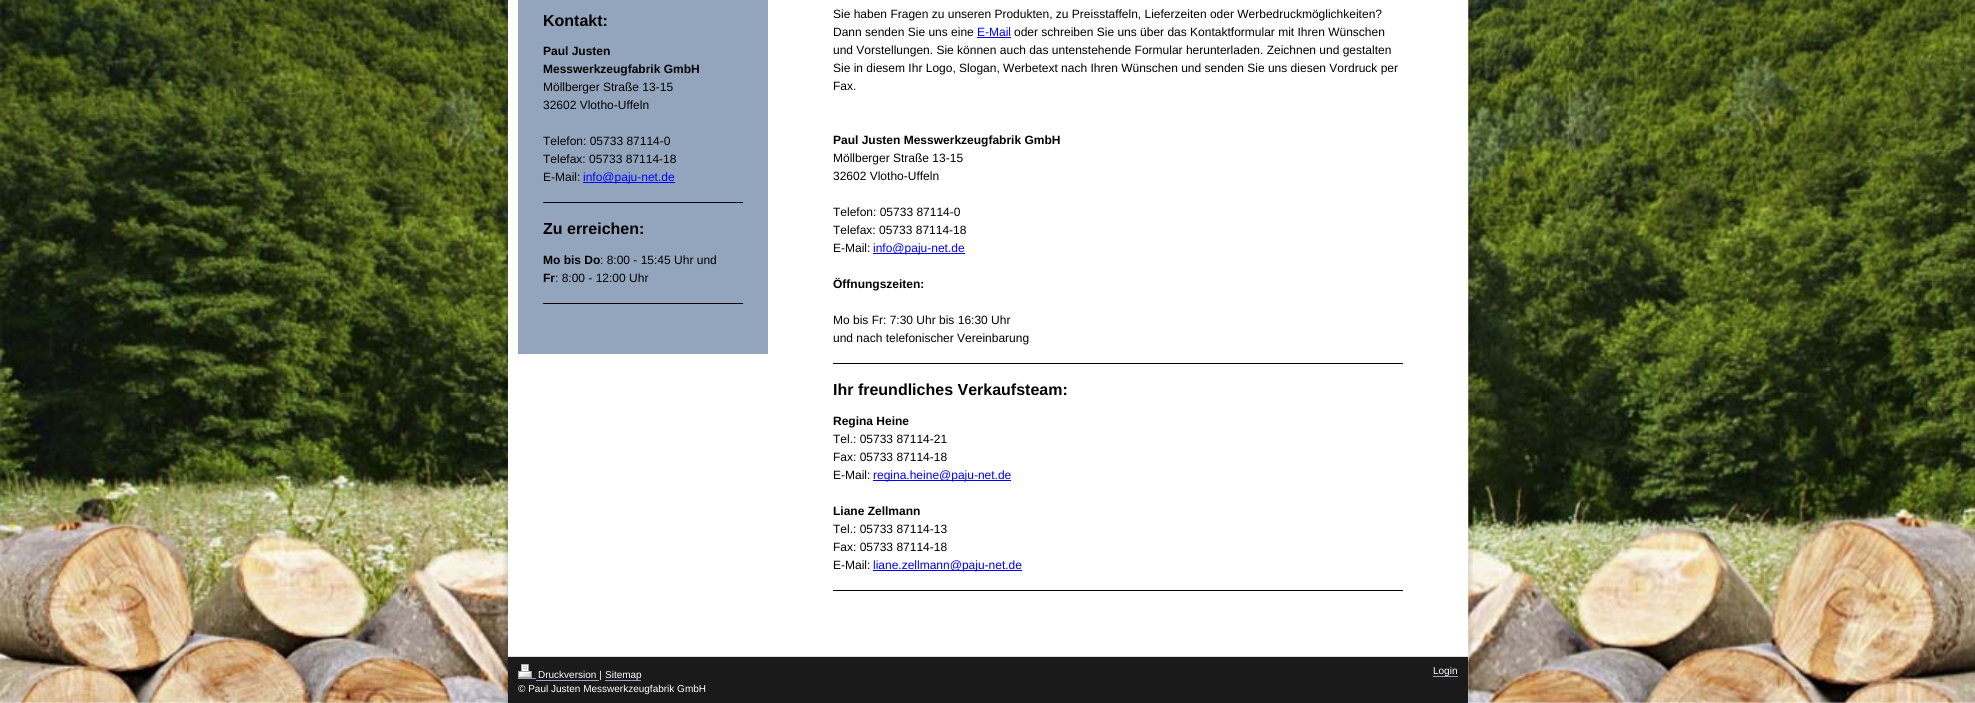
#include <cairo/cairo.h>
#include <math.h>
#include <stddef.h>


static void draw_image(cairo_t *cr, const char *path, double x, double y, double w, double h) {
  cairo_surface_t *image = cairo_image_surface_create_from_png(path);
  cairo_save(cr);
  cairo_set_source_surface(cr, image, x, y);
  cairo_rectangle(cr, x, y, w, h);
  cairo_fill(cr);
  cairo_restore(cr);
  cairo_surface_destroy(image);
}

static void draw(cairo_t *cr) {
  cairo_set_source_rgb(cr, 1, 1, 1);
  cairo_paint(cr);
  draw_image(cr, "images/1.png", 0, 0, 1975, 703);
  draw_image(cr, "images/2.png", 503, 0, 970, 703);
  cairo_set_source_rgb(cr, 147 / 255.0, 165 / 255.0, 189 / 255.0);
  cairo_rectangle(cr, 518, 0, 250, 354);
  cairo_fill(cr);
  cairo_set_source_rgb(cr, 0, 0, 1);
  cairo_rectangle(cr, 583, 182, 92, 1);
  cairo_fill(cr);
  cairo_set_source_rgb(cr, 0, 0, 0);
  cairo_rectangle(cr, 543, 202, 200, 1);
  cairo_fill(cr);
  cairo_rectangle(cr, 543, 303, 200, 1);
  cairo_fill(cr);
  cairo_set_source_rgb(cr, 0, 0, 1);
  cairo_rectangle(cr, 977, 37, 34, 1);
  cairo_fill(cr);
  cairo_rectangle(cr, 873, 253, 92, 1);
  cairo_fill(cr);
  cairo_set_source_rgb(cr, 0, 0, 0);
  cairo_rectangle(cr, 833, 363, 570, 1);
  cairo_fill(cr);
  cairo_set_source_rgb(cr, 0, 0, 1);
  cairo_rectangle(cr, 873, 480, 138, 1);
  cairo_fill(cr);
  cairo_rectangle(cr, 873, 570, 149, 1);
  cairo_fill(cr);
  cairo_set_source_rgb(cr, 0, 0, 0);
  cairo_rectangle(cr, 833, 590, 570, 1);
  cairo_fill(cr);
  cairo_set_source_rgb(cr, 26 / 255.0, 26 / 255.0, 26 / 255.0);
  cairo_rectangle(cr, 508, 657, 960, 46);
  cairo_fill(cr);
  cairo_set_source_rgb(cr, 222 / 255.0, 222 / 255.0, 222 / 255.0);
  cairo_rectangle(cr, 508, 656, 960, 1);
  cairo_fill(cr);
  draw_image(cr, "images/3.png", 518, 664, 14, 14);
  cairo_set_source_rgb(cr, 147 / 255.0, 165 / 255.0, 189 / 255.0);
  cairo_rectangle(cr, 518, 678, 18, 1);
  cairo_fill(cr);
  cairo_rectangle(cr, 536, 680, 63, 1);
  cairo_fill(cr);
  cairo_rectangle(cr, 605, 680, 36, 1);
  cairo_fill(cr);
  cairo_rectangle(cr, 1433, 676, 25, 1);
  cairo_fill(cr);
  cairo_select_font_face(cr, "Liberation Sans", CAIRO_FONT_SLANT_NORMAL, CAIRO_FONT_WEIGHT_BOLD);
  cairo_set_font_size(cr, 16);
  cairo_set_source_rgb(cr, 0, 0, 0);
  cairo_move_to(cr, 543, 26);
  cairo_show_text(cr, "Kontakt:");
  cairo_set_font_size(cr, 12);
  cairo_move_to(cr, 543, 55);
  cairo_show_text(cr, "Paul Justen");
  cairo_move_to(cr, 543, 73);
  cairo_show_text(cr, "Messwerkzeugfabrik GmbH");
  cairo_select_font_face(cr, "Liberation Sans", CAIRO_FONT_SLANT_NORMAL, CAIRO_FONT_WEIGHT_NORMAL);
  cairo_move_to(cr, 543, 91);
  cairo_show_text(cr, "Möllberger Straße 13-15");
  cairo_move_to(cr, 543, 109);
  cairo_show_text(cr, "32602 Vlotho-Uffeln");
  cairo_move_to(cr, 543, 145);
  cairo_show_text(cr, "Telefon: 05733 87114-0");
  cairo_move_to(cr, 543, 163);
  cairo_show_text(cr, "Telefax: 05733 87114-18");
  cairo_move_to(cr, 543, 181);
  cairo_show_text(cr, "E-Mail:");
  cairo_set_source_rgb(cr, 0, 0, 1);
  cairo_move_to(cr, 583, 181);
  cairo_show_text(cr, "info@paju-net.de");
  cairo_select_font_face(cr, "Liberation Sans", CAIRO_FONT_SLANT_NORMAL, CAIRO_FONT_WEIGHT_BOLD);
  cairo_set_font_size(cr, 16);
  cairo_set_source_rgb(cr, 0, 0, 0);
  cairo_move_to(cr, 543, 234);
  cairo_show_text(cr, "Zu erreichen:");
  cairo_set_font_size(cr, 12);
  cairo_move_to(cr, 543, 264);
  cairo_show_text(cr, "Mo bis Do");
  cairo_select_font_face(cr, "Liberation Sans", CAIRO_FONT_SLANT_NORMAL, CAIRO_FONT_WEIGHT_NORMAL);
  cairo_move_to(cr, 600, 264);
  cairo_show_text(cr, ": 8:00 - 15:45 Uhr und");
  cairo_select_font_face(cr, "Liberation Sans", CAIRO_FONT_SLANT_NORMAL, CAIRO_FONT_WEIGHT_BOLD);
  cairo_move_to(cr, 543, 282);
  cairo_show_text(cr, "Fr");
  cairo_select_font_face(cr, "Liberation Sans", CAIRO_FONT_SLANT_NORMAL, CAIRO_FONT_WEIGHT_NORMAL);
  cairo_move_to(cr, 555, 282);
  cairo_show_text(cr, ": 8:00 - 12:00 Uhr");
  cairo_move_to(cr, 833, 18);
  cairo_show_text(cr, "Sie haben Fragen zu unseren Produkten, zu Preisstaffeln, Lieferzeiten oder Werbedruckmöglichkeiten?");
  cairo_move_to(cr, 833, 36);
  cairo_show_text(cr, "Dann senden Sie uns eine");
  cairo_set_source_rgb(cr, 0, 0, 1);
  cairo_move_to(cr, 977, 36);
  cairo_show_text(cr, "E-Mail");
  cairo_set_source_rgb(cr, 0, 0, 0);
  cairo_move_to(cr, 1014, 36);
  cairo_show_text(cr, "oder schreiben Sie uns über das Kontaktformular mit Ihren Wünschen");
  cairo_move_to(cr, 833, 54);
  cairo_show_text(cr, "und Vorstellungen. Sie können auch das untenstehende Formular herunterladen. Zeichnen und gestalten");
  cairo_move_to(cr, 833, 72);
  cairo_show_text(cr, "Sie in diesem Ihr Logo, Slogan, Werbetext nach Ihren Wünschen und senden Sie uns diesen Vordruck per");
  cairo_move_to(cr, 833, 90);
  cairo_show_text(cr, "Fax.");
  cairo_select_font_face(cr, "Liberation Sans", CAIRO_FONT_SLANT_NORMAL, CAIRO_FONT_WEIGHT_BOLD);
  cairo_move_to(cr, 833, 144);
  cairo_show_text(cr, "Paul Justen Messwerkzeugfabrik GmbH");
  cairo_select_font_face(cr, "Liberation Sans", CAIRO_FONT_SLANT_NORMAL, CAIRO_FONT_WEIGHT_NORMAL);
  cairo_move_to(cr, 833, 162);
  cairo_show_text(cr, "Möllberger Straße 13-15");
  cairo_move_to(cr, 833, 180);
  cairo_show_text(cr, "32602 Vlotho-Uffeln");
  cairo_move_to(cr, 833, 216);
  cairo_show_text(cr, "Telefon: 05733 87114-0");
  cairo_move_to(cr, 833, 234);
  cairo_show_text(cr, "Telefax: 05733 87114-18");
  cairo_move_to(cr, 833, 252);
  cairo_show_text(cr, "E-Mail:");
  cairo_set_source_rgb(cr, 0, 0, 1);
  cairo_move_to(cr, 873, 252);
  cairo_show_text(cr, "info@paju-net.de");
  cairo_select_font_face(cr, "Liberation Sans", CAIRO_FONT_SLANT_NORMAL, CAIRO_FONT_WEIGHT_BOLD);
  cairo_set_source_rgb(cr, 0, 0, 0);
  cairo_move_to(cr, 833, 288);
  cairo_show_text(cr, "Öffnungszeiten:");
  cairo_select_font_face(cr, "Liberation Sans", CAIRO_FONT_SLANT_NORMAL, CAIRO_FONT_WEIGHT_NORMAL);
  cairo_move_to(cr, 833, 324);
  cairo_show_text(cr, "Mo bis Fr: 7:30 Uhr bis 16:30 Uhr");
  cairo_move_to(cr, 833, 342);
  cairo_show_text(cr, "und nach telefonischer Vereinbarung");
  cairo_select_font_face(cr, "Liberation Sans", CAIRO_FONT_SLANT_NORMAL, CAIRO_FONT_WEIGHT_BOLD);
  cairo_set_font_size(cr, 16);
  cairo_move_to(cr, 833, 395);
  cairo_show_text(cr, "Ihr freundliches Verkaufsteam:");
  cairo_set_font_size(cr, 12);
  cairo_move_to(cr, 833, 425);
  cairo_show_text(cr, "Regina Heine");
  cairo_select_font_face(cr, "Liberation Sans", CAIRO_FONT_SLANT_NORMAL, CAIRO_FONT_WEIGHT_NORMAL);
  cairo_move_to(cr, 833, 443);
  cairo_show_text(cr, "Tel.: 05733 87114-21");
  cairo_move_to(cr, 833, 461);
  cairo_show_text(cr, "Fax: 05733 87114-18");
  cairo_move_to(cr, 833, 479);
  cairo_show_text(cr, "E-Mail:");
  cairo_set_source_rgb(cr, 0, 0, 1);
  cairo_move_to(cr, 873, 479);
  cairo_show_text(cr, "regina.heine@paju-net.de");
  cairo_select_font_face(cr, "Liberation Sans", CAIRO_FONT_SLANT_NORMAL, CAIRO_FONT_WEIGHT_BOLD);
  cairo_set_source_rgb(cr, 0, 0, 0);
  cairo_move_to(cr, 833, 515);
  cairo_show_text(cr, "Liane Zellmann");
  cairo_select_font_face(cr, "Liberation Sans", CAIRO_FONT_SLANT_NORMAL, CAIRO_FONT_WEIGHT_NORMAL);
  cairo_move_to(cr, 833, 533);
  cairo_show_text(cr, "Tel.: 05733 87114-13");
  cairo_move_to(cr, 833, 551);
  cairo_show_text(cr, "Fax: 05733 87114-18");
  cairo_move_to(cr, 833, 569);
  cairo_show_text(cr, "E-Mail:");
  cairo_set_source_rgb(cr, 0, 0, 1);
  cairo_move_to(cr, 873, 569);
  cairo_show_text(cr, "liane.zellmann@paju-net.de");
  cairo_set_font_size(cr, 10);
  cairo_set_source_rgb(cr, 1, 1, 1);
  cairo_move_to(cr, 538, 678);
  cairo_show_text(cr, "Druckversion |");
  cairo_move_to(cr, 605, 678);
  cairo_show_text(cr, "Sitemap");
  cairo_save(cr);
  cairo_rectangle(cr, 518, 664, 940, 32);
  cairo_clip(cr);
  cairo_move_to(cr, 518, 692);
  cairo_show_text(cr, "© Paul Justen Messwerkzeugfabrik GmbH");
  cairo_restore(cr);
  cairo_move_to(cr, 1433, 674);
  cairo_show_text(cr, "Login");
}

int main(void) {
  cairo_surface_t *surface = cairo_image_surface_create(CAIRO_FORMAT_RGB24, 1975, 703);
  cairo_t *cr = cairo_create(surface);
  cairo_font_options_t *options = cairo_font_options_create();
  cairo_font_options_set_hint_metrics(options, CAIRO_HINT_METRICS_OFF);
  cairo_font_options_set_hint_style(options, CAIRO_HINT_STYLE_NONE);
  cairo_set_font_options(cr, options);
  cairo_set_miter_limit(cr, 4);
  draw(cr);
  cairo_surface_write_to_png(surface, "out.png");
  cairo_font_options_destroy(options);
  cairo_destroy(cr);
  cairo_surface_destroy(surface);
  return 0;
}
